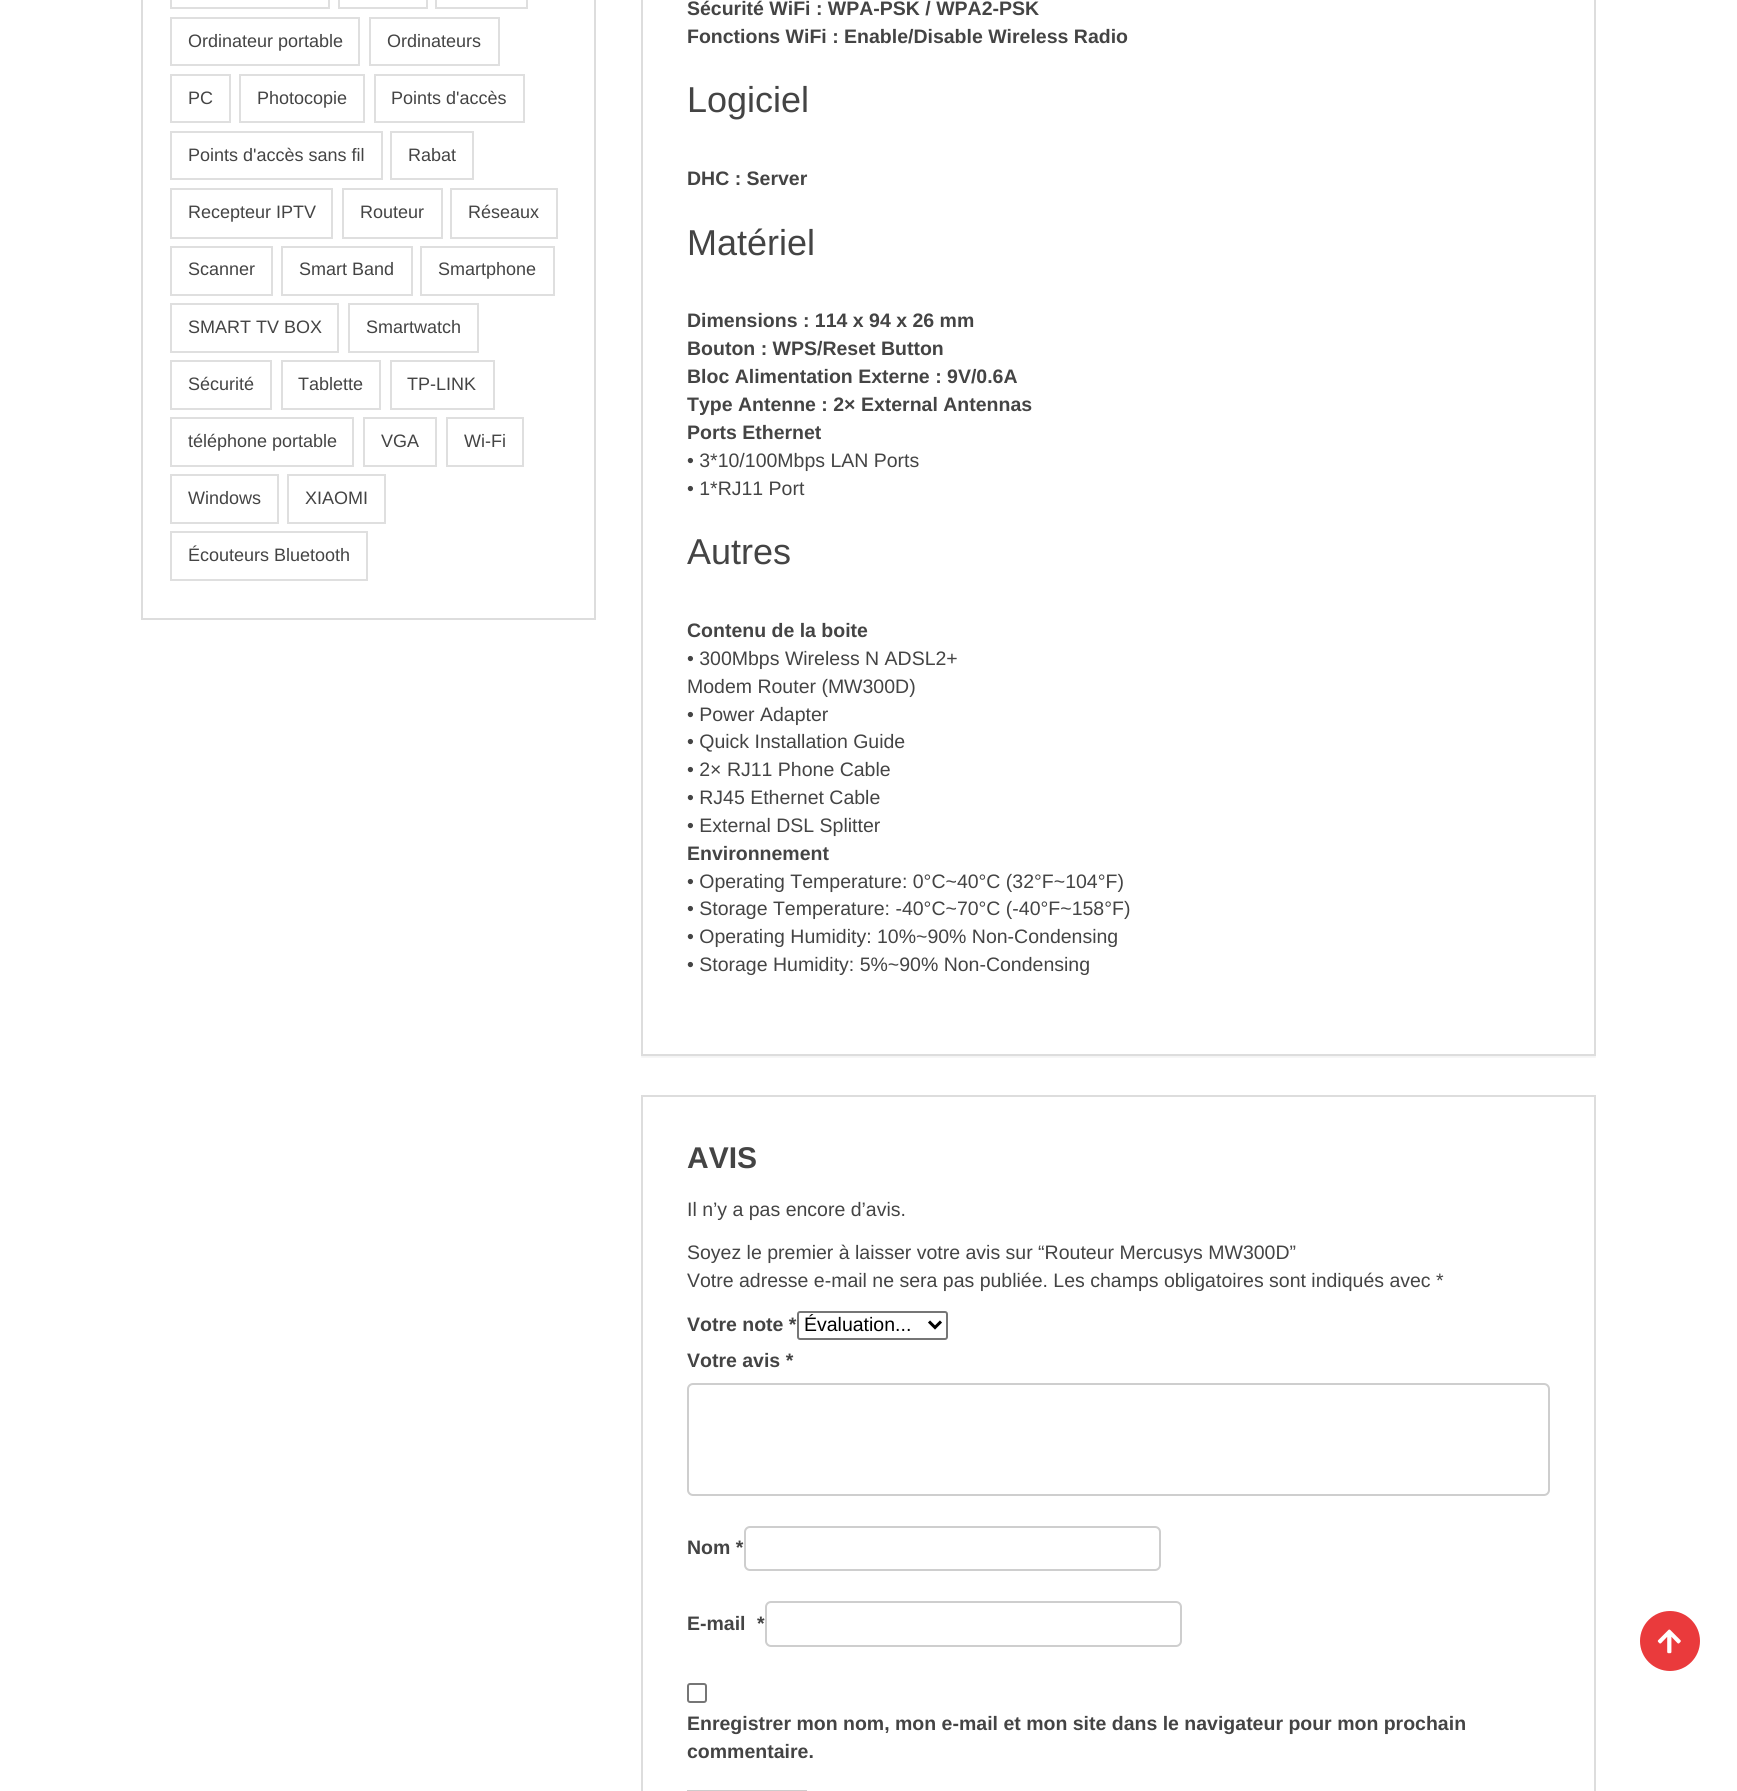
#include <cairo/cairo.h>
#include <math.h>
#include <stddef.h>


static void rounded_rect(cairo_t *cr, double x, double y, double w, double h, double r) {
  cairo_new_sub_path(cr);
  cairo_arc(cr, x + w - r, y + h - r, r, 0, M_PI / 2);
  cairo_arc(cr, x + r, y + h - r, r, M_PI / 2, M_PI);
  cairo_arc(cr, x + r, y + r, r, M_PI, 1.5 * M_PI);
  cairo_arc(cr, x + w - r, y + r, r, 1.5 * M_PI, 2 * M_PI);
  cairo_close_path(cr);
}

static void draw_shadow(cairo_t *cr, double x, double y, double w, double h, double r, double blur, double alpha) {
  cairo_push_group_with_content(cr, CAIRO_CONTENT_ALPHA);
  cairo_set_operator(cr, CAIRO_OPERATOR_SOURCE);
  for (int i = 15; i >= -15 && fmin(w, h) + blur * i / 3 > 0; i -= 2) {
    double e = blur * i / 6;
    cairo_set_source_rgba(cr, 0, 0, 0, alpha * erfc((i - 1) / 8.5) / 2);
    rounded_rect(cr, x - e, y - e, w + 2 * e, h + 2 * e, fmax(0, fmin(r + e + blur * .6, fmin(w, h) / 2 + e)));
    cairo_fill(cr);
  }
  cairo_pattern_t *soft = cairo_pop_group(cr);
  cairo_mask(cr, soft);
  cairo_pattern_destroy(soft);
}

static void draw_image(cairo_t *cr, const char *path, double x, double y, double w, double h) {
  cairo_surface_t *image = cairo_image_surface_create_from_png(path);
  cairo_save(cr);
  cairo_set_source_surface(cr, image, x, y);
  cairo_rectangle(cr, x, y, w, h);
  cairo_fill(cr);
  cairo_restore(cr);
  cairo_surface_destroy(image);
}

static void draw(cairo_t *cr) {
  cairo_set_source_rgb(cr, 1, 1, 1);
  cairo_paint(cr);
  cairo_rectangle(cr, 142, -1, 453, 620);
  cairo_set_source_rgb(cr, 221 / 255.0, 221 / 255.0, 221 / 255.0);
  cairo_stroke(cr);
  cairo_rectangle(cr, 171, -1, 158, 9);
  cairo_set_source_rgb(cr, 223 / 255.0, 223 / 255.0, 223 / 255.0);
  cairo_stroke(cr);
  cairo_rectangle(cr, 339, -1, 88, 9);
  cairo_stroke(cr);
  cairo_rectangle(cr, 436, -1, 91, 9);
  cairo_stroke(cr);
  cairo_rectangle(cr, 171, 18, 188, 47);
  cairo_stroke(cr);
  cairo_rectangle(cr, 370, 18, 129, 47);
  cairo_stroke(cr);
  cairo_rectangle(cr, 171, 75, 59, 47);
  cairo_stroke(cr);
  cairo_rectangle(cr, 240, 75, 124, 47);
  cairo_stroke(cr);
  cairo_rectangle(cr, 375, 75, 149, 47);
  cairo_stroke(cr);
  cairo_rectangle(cr, 171, 132, 211, 47);
  cairo_stroke(cr);
  cairo_rectangle(cr, 391, 132, 82, 47);
  cairo_stroke(cr);
  cairo_rectangle(cr, 171, 189, 161, 49);
  cairo_stroke(cr);
  cairo_rectangle(cr, 343, 189, 99, 49);
  cairo_stroke(cr);
  cairo_rectangle(cr, 451, 189, 106, 49);
  cairo_stroke(cr);
  cairo_rectangle(cr, 171, 247, 101, 48);
  cairo_stroke(cr);
  cairo_rectangle(cr, 282, 247, 130, 48);
  cairo_stroke(cr);
  cairo_rectangle(cr, 421, 247, 133, 48);
  cairo_stroke(cr);
  cairo_rectangle(cr, 171, 304, 167, 48);
  cairo_stroke(cr);
  cairo_rectangle(cr, 349, 304, 129, 48);
  cairo_stroke(cr);
  cairo_rectangle(cr, 171, 361, 100, 48);
  cairo_stroke(cr);
  cairo_rectangle(cr, 282, 361, 98, 48);
  cairo_stroke(cr);
  cairo_rectangle(cr, 391, 361, 103, 48);
  cairo_stroke(cr);
  cairo_rectangle(cr, 171, 418, 182, 48);
  cairo_stroke(cr);
  cairo_rectangle(cr, 364, 418, 72, 48);
  cairo_stroke(cr);
  cairo_rectangle(cr, 447, 418, 76, 48);
  cairo_stroke(cr);
  cairo_rectangle(cr, 171, 475, 107, 48);
  cairo_stroke(cr);
  cairo_rectangle(cr, 288, 475, 97, 48);
  cairo_stroke(cr);
  cairo_rectangle(cr, 171, 532, 196, 48);
  cairo_stroke(cr);
  cairo_save(cr);
  cairo_rectangle(cr, 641, 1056, 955, 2);
  cairo_clip(cr);
  cairo_set_source_rgb(cr, 0, 0, 0);
  draw_shadow(cr, 641, -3, 955, 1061, 0, 1, 0.05);
  cairo_restore(cr);
  cairo_rectangle(cr, 642, -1, 953, 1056);
  cairo_set_source_rgb(cr, 221 / 255.0, 221 / 255.0, 221 / 255.0);
  cairo_stroke(cr);
  cairo_rectangle(cr, 642, 1096, 953, 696);
  cairo_stroke(cr);
  rounded_rect(cr, 798, 1312, 149, 27, 2);
  cairo_set_source_rgb(cr, 118 / 255.0, 118 / 255.0, 118 / 255.0);
  cairo_stroke(cr);
  cairo_new_path(cr);
  cairo_move_to(cr, 929, 1321.5);
  cairo_line_to(cr, 935, 1327.5);
  cairo_line_to(cr, 941, 1321.5);
  cairo_set_source_rgb(cr, 0, 0, 0);
  cairo_set_line_width(cr, 3);
  cairo_stroke(cr);
  rounded_rect(cr, 688, 1384, 861, 111, 5);
  cairo_set_source_rgb(cr, 206 / 255.0, 206 / 255.0, 206 / 255.0);
  cairo_set_line_width(cr, 2);
  cairo_stroke(cr);
  rounded_rect(cr, 745, 1527, 415, 43, 5);
  cairo_stroke(cr);
  rounded_rect(cr, 766, 1602, 415, 44, 5);
  cairo_stroke(cr);
  rounded_rect(cr, 688, 1684, 18, 18, 2);
  cairo_set_source_rgb(cr, 118 / 255.0, 118 / 255.0, 118 / 255.0);
  cairo_stroke(cr);
  cairo_set_source_rgb(cr, 204 / 255.0, 204 / 255.0, 204 / 255.0);
  cairo_rectangle(cr, 687, 1790, 120, 1);
  cairo_fill(cr);
  cairo_set_source_rgb(cr, 234 / 255.0, 58 / 255.0, 60 / 255.0);
  cairo_arc(cr, 1670, 1641, 30, 0, 2 * M_PI);
  cairo_fill(cr);
  draw_image(cr, "images/1.png", 1657, 1629, 24, 25);
  cairo_select_font_face(cr, "Liberation Sans", CAIRO_FONT_SLANT_NORMAL, CAIRO_FONT_WEIGHT_NORMAL);
  cairo_set_font_size(cr, 18);
  cairo_set_source_rgb(cr, 68 / 255.0, 68 / 255.0, 68 / 255.0);
  cairo_move_to(cr, 188, 47);
  cairo_show_text(cr, "Ordinateur portable");
  cairo_move_to(cr, 387, 47);
  cairo_show_text(cr, "Ordinateurs");
  cairo_move_to(cr, 188, 104);
  cairo_show_text(cr, "PC");
  cairo_move_to(cr, 257, 104);
  cairo_show_text(cr, "Photocopie");
  cairo_move_to(cr, 391, 104);
  cairo_show_text(cr, "Points d'accès");
  cairo_move_to(cr, 188, 161);
  cairo_show_text(cr, "Points d'accès sans fil");
  cairo_move_to(cr, 408, 161);
  cairo_show_text(cr, "Rabat");
  cairo_move_to(cr, 188, 218);
  cairo_show_text(cr, "Recepteur IPTV");
  cairo_move_to(cr, 360, 218);
  cairo_show_text(cr, "Routeur");
  cairo_move_to(cr, 468, 218);
  cairo_show_text(cr, "Réseaux");
  cairo_move_to(cr, 188, 275);
  cairo_show_text(cr, "Scanner");
  cairo_move_to(cr, 299, 275);
  cairo_show_text(cr, "Smart Band");
  cairo_move_to(cr, 438, 275);
  cairo_show_text(cr, "Smartphone");
  cairo_move_to(cr, 188, 333);
  cairo_show_text(cr, "SMART TV BOX");
  cairo_move_to(cr, 366, 333);
  cairo_show_text(cr, "Smartwatch");
  cairo_move_to(cr, 188, 390);
  cairo_show_text(cr, "Sécurité");
  cairo_move_to(cr, 298, 390);
  cairo_show_text(cr, "Tablette");
  cairo_move_to(cr, 407, 390);
  cairo_show_text(cr, "TP-LINK");
  cairo_move_to(cr, 188, 447);
  cairo_show_text(cr, "téléphone portable");
  cairo_move_to(cr, 381, 447);
  cairo_show_text(cr, "VGA");
  cairo_move_to(cr, 464, 447);
  cairo_show_text(cr, "Wi-Fi");
  cairo_move_to(cr, 188, 504);
  cairo_show_text(cr, "Windows");
  cairo_move_to(cr, 305, 504);
  cairo_show_text(cr, "XIAOMI");
  cairo_move_to(cr, 188, 561);
  cairo_show_text(cr, "Écouteurs Bluetooth");
  cairo_select_font_face(cr, "Liberation Sans", CAIRO_FONT_SLANT_NORMAL, CAIRO_FONT_WEIGHT_BOLD);
  cairo_set_font_size(cr, 19.5);
  cairo_move_to(cr, 687, 15);
  cairo_show_text(cr, "Sécurité WiFi : WPA-PSK / WPA2-PSK");
  cairo_move_to(cr, 687, 43);
  cairo_show_text(cr, "Fonctions WiFi : Enable/Disable Wireless Radio");
  cairo_select_font_face(cr, "Liberation Sans", CAIRO_FONT_SLANT_NORMAL, CAIRO_FONT_WEIGHT_NORMAL);
  cairo_set_font_size(cr, 36);
  cairo_move_to(cr, 687, 112);
  cairo_show_text(cr, "Logiciel");
  cairo_select_font_face(cr, "Liberation Sans", CAIRO_FONT_SLANT_NORMAL, CAIRO_FONT_WEIGHT_BOLD);
  cairo_set_font_size(cr, 19.5);
  cairo_move_to(cr, 687, 185);
  cairo_show_text(cr, "DHC : Server");
  cairo_select_font_face(cr, "Liberation Sans", CAIRO_FONT_SLANT_NORMAL, CAIRO_FONT_WEIGHT_NORMAL);
  cairo_set_font_size(cr, 36);
  cairo_move_to(cr, 687, 255);
  cairo_show_text(cr, "Matériel");
  cairo_select_font_face(cr, "Liberation Sans", CAIRO_FONT_SLANT_NORMAL, CAIRO_FONT_WEIGHT_BOLD);
  cairo_set_font_size(cr, 19.5);
  cairo_move_to(cr, 687, 327);
  cairo_show_text(cr, "Dimensions : 114 x 94 x 26 mm");
  cairo_move_to(cr, 687, 355);
  cairo_show_text(cr, "Bouton : WPS/Reset Button");
  cairo_move_to(cr, 687, 383);
  cairo_show_text(cr, "Bloc Alimentation Externe : 9V/0.6A");
  cairo_move_to(cr, 687, 411);
  cairo_show_text(cr, "Type Antenne : 2× External Antennas");
  cairo_move_to(cr, 687, 439);
  cairo_show_text(cr, "Ports Ethernet");
  cairo_select_font_face(cr, "Liberation Sans", CAIRO_FONT_SLANT_NORMAL, CAIRO_FONT_WEIGHT_NORMAL);
  cairo_move_to(cr, 687, 467);
  cairo_show_text(cr, "• 3*10/100Mbps LAN Ports");
  cairo_move_to(cr, 687, 495);
  cairo_show_text(cr, "• 1*RJ11 Port");
  cairo_set_font_size(cr, 36);
  cairo_move_to(cr, 687, 564);
  cairo_show_text(cr, "Autres");
  cairo_select_font_face(cr, "Liberation Sans", CAIRO_FONT_SLANT_NORMAL, CAIRO_FONT_WEIGHT_BOLD);
  cairo_set_font_size(cr, 19.5);
  cairo_move_to(cr, 687, 637);
  cairo_show_text(cr, "Contenu de la boite");
  cairo_select_font_face(cr, "Liberation Sans", CAIRO_FONT_SLANT_NORMAL, CAIRO_FONT_WEIGHT_NORMAL);
  cairo_move_to(cr, 687, 665);
  cairo_show_text(cr, "• 300Mbps Wireless N ADSL2+");
  cairo_move_to(cr, 687, 693);
  cairo_show_text(cr, "Modem Router (MW300D)");
  cairo_move_to(cr, 687, 721);
  cairo_show_text(cr, "• Power Adapter");
  cairo_move_to(cr, 687, 748);
  cairo_show_text(cr, "• Quick Installation Guide");
  cairo_move_to(cr, 687, 776);
  cairo_show_text(cr, "• 2× RJ11 Phone Cable");
  cairo_move_to(cr, 687, 804);
  cairo_show_text(cr, "• RJ45 Ethernet Cable");
  cairo_move_to(cr, 687, 832);
  cairo_show_text(cr, "• External DSL Splitter");
  cairo_select_font_face(cr, "Liberation Sans", CAIRO_FONT_SLANT_NORMAL, CAIRO_FONT_WEIGHT_BOLD);
  cairo_move_to(cr, 687, 860);
  cairo_show_text(cr, "Environnement");
  cairo_select_font_face(cr, "Liberation Sans", CAIRO_FONT_SLANT_NORMAL, CAIRO_FONT_WEIGHT_NORMAL);
  cairo_move_to(cr, 687, 888);
  cairo_show_text(cr, "• Operating Temperature: 0°C~40°C (32°F~104°F)");
  cairo_move_to(cr, 687, 915);
  cairo_show_text(cr, "• Storage Temperature: -40°C~70°C (-40°F~158°F)");
  cairo_move_to(cr, 687, 943);
  cairo_show_text(cr, "• Operating Humidity: 10%~90% Non-Condensing");
  cairo_move_to(cr, 687, 971);
  cairo_show_text(cr, "• Storage Humidity: 5%~90% Non-Condensing");
  cairo_select_font_face(cr, "Liberation Sans", CAIRO_FONT_SLANT_NORMAL, CAIRO_FONT_WEIGHT_BOLD);
  cairo_set_font_size(cr, 30);
  cairo_move_to(cr, 687, 1168);
  cairo_show_text(cr, "AVIS");
  cairo_select_font_face(cr, "Liberation Sans", CAIRO_FONT_SLANT_NORMAL, CAIRO_FONT_WEIGHT_NORMAL);
  cairo_set_font_size(cr, 19.5);
  cairo_move_to(cr, 687, 1216);
  cairo_show_text(cr, "Il n’y a pas encore d’avis.");
  cairo_move_to(cr, 687, 1259);
  cairo_show_text(cr, "Soyez le premier à laisser votre avis sur “Routeur Mercusys MW300D”");
  cairo_move_to(cr, 687, 1287);
  cairo_show_text(cr, "Votre adresse e-mail ne sera pas publiée. Les champs obligatoires sont indiqués avec *");
  cairo_select_font_face(cr, "Liberation Sans", CAIRO_FONT_SLANT_NORMAL, CAIRO_FONT_WEIGHT_BOLD);
  cairo_move_to(cr, 687, 1331);
  cairo_show_text(cr, "Votre note *");
  cairo_select_font_face(cr, "Liberation Sans", CAIRO_FONT_SLANT_NORMAL, CAIRO_FONT_WEIGHT_NORMAL);
  cairo_set_source_rgb(cr, 0, 0, 0);
  cairo_move_to(cr, 804, 1331);
  cairo_show_text(cr, "Évaluation...");
  cairo_select_font_face(cr, "Liberation Sans", CAIRO_FONT_SLANT_NORMAL, CAIRO_FONT_WEIGHT_BOLD);
  cairo_set_source_rgb(cr, 68 / 255.0, 68 / 255.0, 68 / 255.0);
  cairo_move_to(cr, 687, 1367);
  cairo_show_text(cr, "Votre avis *");
  cairo_move_to(cr, 687, 1554);
  cairo_show_text(cr, "Nom *");
  cairo_move_to(cr, 687, 1630);
  cairo_show_text(cr, "E-mail");
  cairo_move_to(cr, 757, 1630);
  cairo_show_text(cr, "*");
  cairo_move_to(cr, 687, 1730);
  cairo_show_text(cr, "Enregistrer mon nom, mon e-mail et mon site dans le navigateur pour mon prochain");
  cairo_move_to(cr, 687, 1758);
  cairo_show_text(cr, "commentaire.");
}

int main(void) {
  cairo_surface_t *surface = cairo_image_surface_create(CAIRO_FORMAT_RGB24, 1737, 1791);
  cairo_t *cr = cairo_create(surface);
  cairo_font_options_t *options = cairo_font_options_create();
  cairo_font_options_set_hint_metrics(options, CAIRO_HINT_METRICS_OFF);
  cairo_font_options_set_hint_style(options, CAIRO_HINT_STYLE_NONE);
  cairo_set_font_options(cr, options);
  cairo_set_miter_limit(cr, 4);
  draw(cr);
  cairo_surface_write_to_png(surface, "out.png");
  cairo_font_options_destroy(options);
  cairo_destroy(cr);
  cairo_surface_destroy(surface);
  return 0;
}
